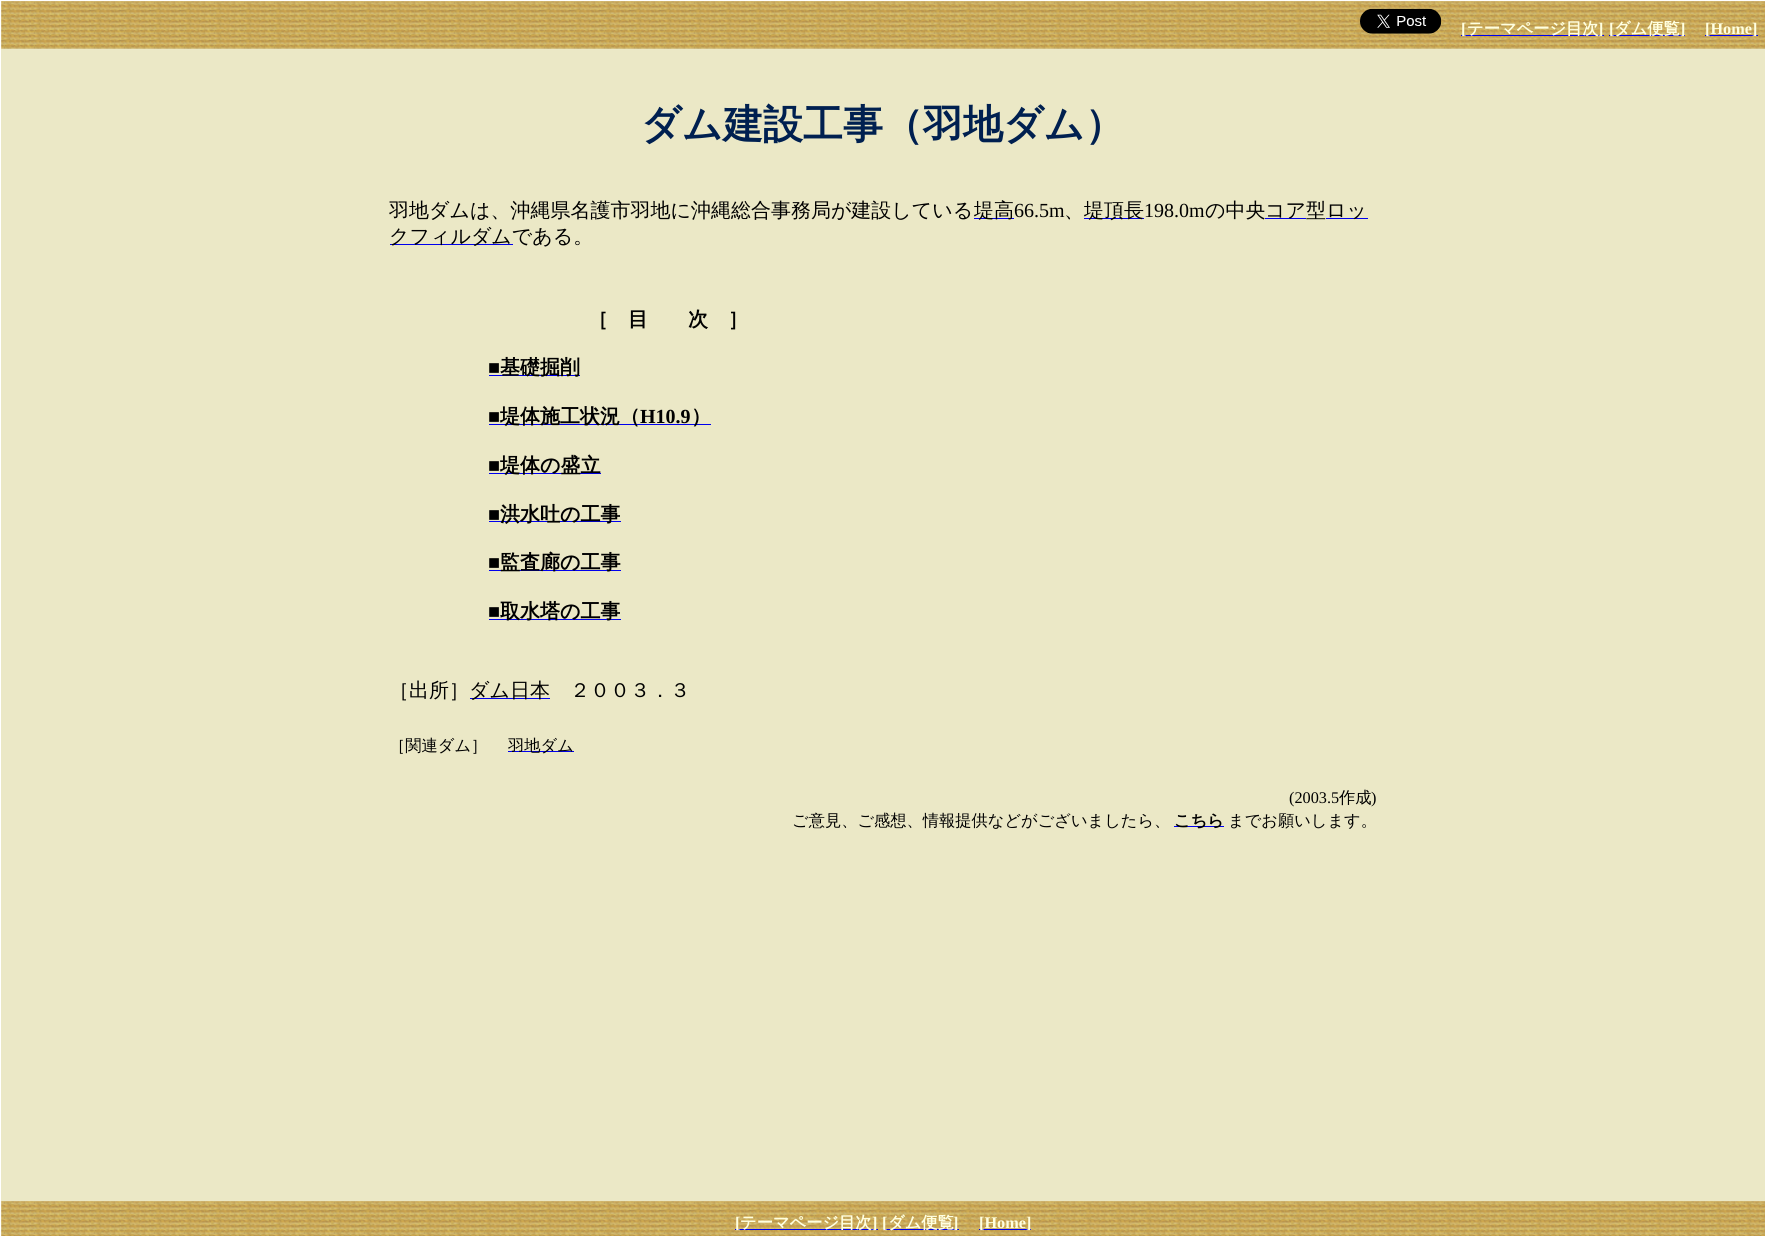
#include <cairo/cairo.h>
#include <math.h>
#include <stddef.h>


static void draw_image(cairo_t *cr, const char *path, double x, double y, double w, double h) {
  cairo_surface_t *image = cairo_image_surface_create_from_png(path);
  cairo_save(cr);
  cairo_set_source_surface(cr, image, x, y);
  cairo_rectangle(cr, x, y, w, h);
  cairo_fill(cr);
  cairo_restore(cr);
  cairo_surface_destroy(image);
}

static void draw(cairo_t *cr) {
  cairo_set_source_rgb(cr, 1, 1, 1);
  cairo_paint(cr);
  cairo_set_source_rgb(cr, 235 / 255.0, 232 / 255.0, 198 / 255.0);
  cairo_rectangle(cr, 1, 1, 1764, 1235);
  cairo_fill(cr);
  draw_image(cr, "images/1.png", 1, 1, 1764, 48);
  draw_image(cr, "images/2.png", 1360, 8, 82, 26);
  cairo_set_source_rgb(cr, 0, 0, 238 / 255.0);
  cairo_rectangle(cr, 1461, 35, 143, 1);
  cairo_fill(cr);
  cairo_rectangle(cr, 1609, 35, 76, 1);
  cairo_fill(cr);
  cairo_rectangle(cr, 1705, 35, 53, 1);
  cairo_fill(cr);
  cairo_rectangle(cr, 974, 218, 40, 1);
  cairo_fill(cr);
  cairo_rectangle(cr, 1084, 218, 60, 1);
  cairo_fill(cr);
  cairo_rectangle(cr, 1265, 218, 41, 1);
  cairo_fill(cr);
  cairo_rectangle(cr, 1326, 218, 42, 1);
  cairo_fill(cr);
  cairo_rectangle(cr, 390, 244, 123, 1);
  cairo_fill(cr);
  cairo_rectangle(cr, 489, 375, 91, 1);
  cairo_fill(cr);
  cairo_rectangle(cr, 489, 424, 222, 1);
  cairo_fill(cr);
  cairo_rectangle(cr, 489, 473, 112, 1);
  cairo_fill(cr);
  cairo_rectangle(cr, 489, 521, 132, 1);
  cairo_fill(cr);
  cairo_rectangle(cr, 489, 570, 132, 1);
  cairo_fill(cr);
  cairo_rectangle(cr, 489, 619, 132, 1);
  cairo_fill(cr);
  cairo_rectangle(cr, 470, 698, 80, 1);
  cairo_fill(cr);
  cairo_rectangle(cr, 508, 751, 66, 1);
  cairo_fill(cr);
  cairo_rectangle(cr, 1174, 826, 50, 1);
  cairo_fill(cr);
  draw_image(cr, "images/3.png", 1, 1201, 1764, 35);
  cairo_rectangle(cr, 735, 1229, 143, 1);
  cairo_fill(cr);
  cairo_rectangle(cr, 883, 1229, 76, 1);
  cairo_fill(cr);
  cairo_rectangle(cr, 979, 1229, 52, 1);
  cairo_fill(cr);
  cairo_select_font_face(cr, "Liberation Serif", CAIRO_FONT_SLANT_NORMAL, CAIRO_FONT_WEIGHT_BOLD);
  cairo_set_font_size(cr, 16.25);
  cairo_set_source_rgb(cr, 1, 1, 224 / 255.0);
  cairo_move_to(cr, 1461, 34);
  cairo_show_text(cr, "[");
  cairo_select_font_face(cr, "WenQuanYi Zen Hei", CAIRO_FONT_SLANT_NORMAL, CAIRO_FONT_WEIGHT_BOLD);
  cairo_move_to(cr, 1467, 34);
  cairo_show_text(cr, "テーマページ目次");
  cairo_select_font_face(cr, "Liberation Serif", CAIRO_FONT_SLANT_NORMAL, CAIRO_FONT_WEIGHT_BOLD);
  cairo_move_to(cr, 1598, 34);
  cairo_show_text(cr, "]");
  cairo_move_to(cr, 1609, 34);
  cairo_show_text(cr, "[");
  cairo_select_font_face(cr, "WenQuanYi Zen Hei", CAIRO_FONT_SLANT_NORMAL, CAIRO_FONT_WEIGHT_BOLD);
  cairo_move_to(cr, 1614, 34);
  cairo_show_text(cr, "ダム便覧");
  cairo_select_font_face(cr, "Liberation Serif", CAIRO_FONT_SLANT_NORMAL, CAIRO_FONT_WEIGHT_BOLD);
  cairo_move_to(cr, 1680, 34);
  cairo_show_text(cr, "]");
  cairo_move_to(cr, 1705, 34);
  cairo_show_text(cr, "[Home]");
  cairo_select_font_face(cr, "WenQuanYi Zen Hei", CAIRO_FONT_SLANT_NORMAL, CAIRO_FONT_WEIGHT_BOLD);
  cairo_set_font_size(cr, 40);
  cairo_set_source_rgb(cr, 0, 32 / 255.0, 80 / 255.0);
  cairo_move_to(cr, 641, 138);
  cairo_show_text(cr, "ダム建設工事（羽地ダム）");
  cairo_select_font_face(cr, "WenQuanYi Zen Hei Medium", CAIRO_FONT_SLANT_NORMAL, CAIRO_FONT_WEIGHT_NORMAL);
  cairo_set_font_size(cr, 20);
  cairo_set_source_rgb(cr, 0, 0, 0);
  cairo_move_to(cr, 389, 217);
  cairo_show_text(cr, "羽地ダムは、沖縄県名護市羽地に沖縄総合事務局が建設している");
  cairo_move_to(cr, 974, 217);
  cairo_show_text(cr, "堤高");
  cairo_select_font_face(cr, "Liberation Serif", CAIRO_FONT_SLANT_NORMAL, CAIRO_FONT_WEIGHT_NORMAL);
  cairo_move_to(cr, 1014, 217);
  cairo_show_text(cr, "66.5m");
  cairo_select_font_face(cr, "WenQuanYi Zen Hei Medium", CAIRO_FONT_SLANT_NORMAL, CAIRO_FONT_WEIGHT_NORMAL);
  cairo_move_to(cr, 1064, 217);
  cairo_show_text(cr, "、");
  cairo_move_to(cr, 1084, 217);
  cairo_show_text(cr, "堤頂長");
  cairo_select_font_face(cr, "Liberation Serif", CAIRO_FONT_SLANT_NORMAL, CAIRO_FONT_WEIGHT_NORMAL);
  cairo_move_to(cr, 1144, 217);
  cairo_show_text(cr, "198.0m");
  cairo_select_font_face(cr, "WenQuanYi Zen Hei Medium", CAIRO_FONT_SLANT_NORMAL, CAIRO_FONT_WEIGHT_NORMAL);
  cairo_move_to(cr, 1205, 217);
  cairo_show_text(cr, "の中央");
  cairo_move_to(cr, 1265, 217);
  cairo_show_text(cr, "コア型");
  cairo_move_to(cr, 1326, 217);
  cairo_show_text(cr, "ロッ");
  cairo_move_to(cr, 389, 243);
  cairo_show_text(cr, "クフィルダムである。");
  cairo_select_font_face(cr, "WenQuanYi Zen Hei", CAIRO_FONT_SLANT_NORMAL, CAIRO_FONT_WEIGHT_BOLD);
  cairo_move_to(cr, 588, 326);
  cairo_show_text(cr, "［　目　　次　］");
  cairo_select_font_face(cr, "Liberation Serif", CAIRO_FONT_SLANT_NORMAL, CAIRO_FONT_WEIGHT_BOLD);
  cairo_move_to(cr, 488, 374);
  cairo_show_text(cr, "■");
  cairo_select_font_face(cr, "WenQuanYi Zen Hei", CAIRO_FONT_SLANT_NORMAL, CAIRO_FONT_WEIGHT_BOLD);
  cairo_move_to(cr, 500, 374);
  cairo_show_text(cr, "基礎掘削");
  cairo_select_font_face(cr, "Liberation Serif", CAIRO_FONT_SLANT_NORMAL, CAIRO_FONT_WEIGHT_BOLD);
  cairo_move_to(cr, 488, 423);
  cairo_show_text(cr, "■");
  cairo_select_font_face(cr, "WenQuanYi Zen Hei", CAIRO_FONT_SLANT_NORMAL, CAIRO_FONT_WEIGHT_BOLD);
  cairo_move_to(cr, 500, 423);
  cairo_show_text(cr, "堤体施工状況（");
  cairo_select_font_face(cr, "Liberation Serif", CAIRO_FONT_SLANT_NORMAL, CAIRO_FONT_WEIGHT_BOLD);
  cairo_move_to(cr, 640, 423);
  cairo_show_text(cr, "H10.9");
  cairo_select_font_face(cr, "WenQuanYi Zen Hei", CAIRO_FONT_SLANT_NORMAL, CAIRO_FONT_WEIGHT_BOLD);
  cairo_move_to(cr, 691, 423);
  cairo_show_text(cr, "）");
  cairo_select_font_face(cr, "Liberation Serif", CAIRO_FONT_SLANT_NORMAL, CAIRO_FONT_WEIGHT_BOLD);
  cairo_move_to(cr, 488, 472);
  cairo_show_text(cr, "■");
  cairo_select_font_face(cr, "WenQuanYi Zen Hei", CAIRO_FONT_SLANT_NORMAL, CAIRO_FONT_WEIGHT_BOLD);
  cairo_move_to(cr, 500, 472);
  cairo_show_text(cr, "堤体の盛立");
  cairo_select_font_face(cr, "Liberation Serif", CAIRO_FONT_SLANT_NORMAL, CAIRO_FONT_WEIGHT_BOLD);
  cairo_move_to(cr, 488, 521);
  cairo_show_text(cr, "■");
  cairo_select_font_face(cr, "WenQuanYi Zen Hei", CAIRO_FONT_SLANT_NORMAL, CAIRO_FONT_WEIGHT_BOLD);
  cairo_move_to(cr, 500, 521);
  cairo_show_text(cr, "洪水吐の工事");
  cairo_select_font_face(cr, "Liberation Serif", CAIRO_FONT_SLANT_NORMAL, CAIRO_FONT_WEIGHT_BOLD);
  cairo_move_to(cr, 488, 569);
  cairo_show_text(cr, "■");
  cairo_select_font_face(cr, "WenQuanYi Zen Hei", CAIRO_FONT_SLANT_NORMAL, CAIRO_FONT_WEIGHT_BOLD);
  cairo_move_to(cr, 500, 569);
  cairo_show_text(cr, "監査廊の工事");
  cairo_select_font_face(cr, "Liberation Serif", CAIRO_FONT_SLANT_NORMAL, CAIRO_FONT_WEIGHT_BOLD);
  cairo_move_to(cr, 488, 618);
  cairo_show_text(cr, "■");
  cairo_select_font_face(cr, "WenQuanYi Zen Hei", CAIRO_FONT_SLANT_NORMAL, CAIRO_FONT_WEIGHT_BOLD);
  cairo_move_to(cr, 500, 618);
  cairo_show_text(cr, "取水塔の工事");
  cairo_select_font_face(cr, "WenQuanYi Zen Hei Medium", CAIRO_FONT_SLANT_NORMAL, CAIRO_FONT_WEIGHT_NORMAL);
  cairo_move_to(cr, 389, 697);
  cairo_show_text(cr, "［出所］");
  cairo_move_to(cr, 469, 697);
  cairo_show_text(cr, "ダム日本");
  cairo_move_to(cr, 570, 697);
  cairo_show_text(cr, "２００３．３");
  cairo_set_font_size(cr, 16.25);
  cairo_move_to(cr, 389, 751);
  cairo_show_text(cr, "［関連ダム］");
  cairo_move_to(cr, 508, 751);
  cairo_show_text(cr, "羽地ダム");
  cairo_select_font_face(cr, "Liberation Serif", CAIRO_FONT_SLANT_NORMAL, CAIRO_FONT_WEIGHT_NORMAL);
  cairo_move_to(cr, 1289, 803);
  cairo_show_text(cr, "(2003.5");
  cairo_select_font_face(cr, "WenQuanYi Zen Hei Medium", CAIRO_FONT_SLANT_NORMAL, CAIRO_FONT_WEIGHT_NORMAL);
  cairo_move_to(cr, 1339, 803);
  cairo_show_text(cr, "作成");
  cairo_select_font_face(cr, "Liberation Serif", CAIRO_FONT_SLANT_NORMAL, CAIRO_FONT_WEIGHT_NORMAL);
  cairo_move_to(cr, 1371, 803);
  cairo_show_text(cr, ")");
  cairo_select_font_face(cr, "WenQuanYi Zen Hei Medium", CAIRO_FONT_SLANT_NORMAL, CAIRO_FONT_WEIGHT_NORMAL);
  cairo_move_to(cr, 792, 826);
  cairo_show_text(cr, "ご意見、ご感想、情報提供などがございましたら、");
  cairo_select_font_face(cr, "WenQuanYi Zen Hei", CAIRO_FONT_SLANT_NORMAL, CAIRO_FONT_WEIGHT_BOLD);
  cairo_move_to(cr, 1174, 826);
  cairo_show_text(cr, "こちら");
  cairo_select_font_face(cr, "WenQuanYi Zen Hei Medium", CAIRO_FONT_SLANT_NORMAL, CAIRO_FONT_WEIGHT_NORMAL);
  cairo_move_to(cr, 1228, 826);
  cairo_show_text(cr, "までお願いします。");
  cairo_select_font_face(cr, "Liberation Serif", CAIRO_FONT_SLANT_NORMAL, CAIRO_FONT_WEIGHT_BOLD);
  cairo_set_source_rgb(cr, 1, 1, 224 / 255.0);
  cairo_move_to(cr, 735, 1228);
  cairo_show_text(cr, "[");
  cairo_select_font_face(cr, "WenQuanYi Zen Hei", CAIRO_FONT_SLANT_NORMAL, CAIRO_FONT_WEIGHT_BOLD);
  cairo_move_to(cr, 740, 1228);
  cairo_show_text(cr, "テーマページ目次");
  cairo_select_font_face(cr, "Liberation Serif", CAIRO_FONT_SLANT_NORMAL, CAIRO_FONT_WEIGHT_BOLD);
  cairo_move_to(cr, 872, 1228);
  cairo_show_text(cr, "]");
  cairo_move_to(cr, 882, 1228);
  cairo_show_text(cr, "[");
  cairo_select_font_face(cr, "WenQuanYi Zen Hei", CAIRO_FONT_SLANT_NORMAL, CAIRO_FONT_WEIGHT_BOLD);
  cairo_move_to(cr, 888, 1228);
  cairo_show_text(cr, "ダム便覧");
  cairo_select_font_face(cr, "Liberation Serif", CAIRO_FONT_SLANT_NORMAL, CAIRO_FONT_WEIGHT_BOLD);
  cairo_move_to(cr, 953, 1228);
  cairo_show_text(cr, "]");
  cairo_move_to(cr, 979, 1228);
  cairo_show_text(cr, "[Home]");
}

int main(void) {
  cairo_surface_t *surface = cairo_image_surface_create(CAIRO_FORMAT_RGB24, 1766, 1236);
  cairo_t *cr = cairo_create(surface);
  cairo_font_options_t *options = cairo_font_options_create();
  cairo_font_options_set_hint_metrics(options, CAIRO_HINT_METRICS_OFF);
  cairo_font_options_set_hint_style(options, CAIRO_HINT_STYLE_NONE);
  cairo_set_font_options(cr, options);
  cairo_set_miter_limit(cr, 4);
  draw(cr);
  cairo_surface_write_to_png(surface, "out.png");
  cairo_font_options_destroy(options);
  cairo_destroy(cr);
  cairo_surface_destroy(surface);
  return 0;
}
